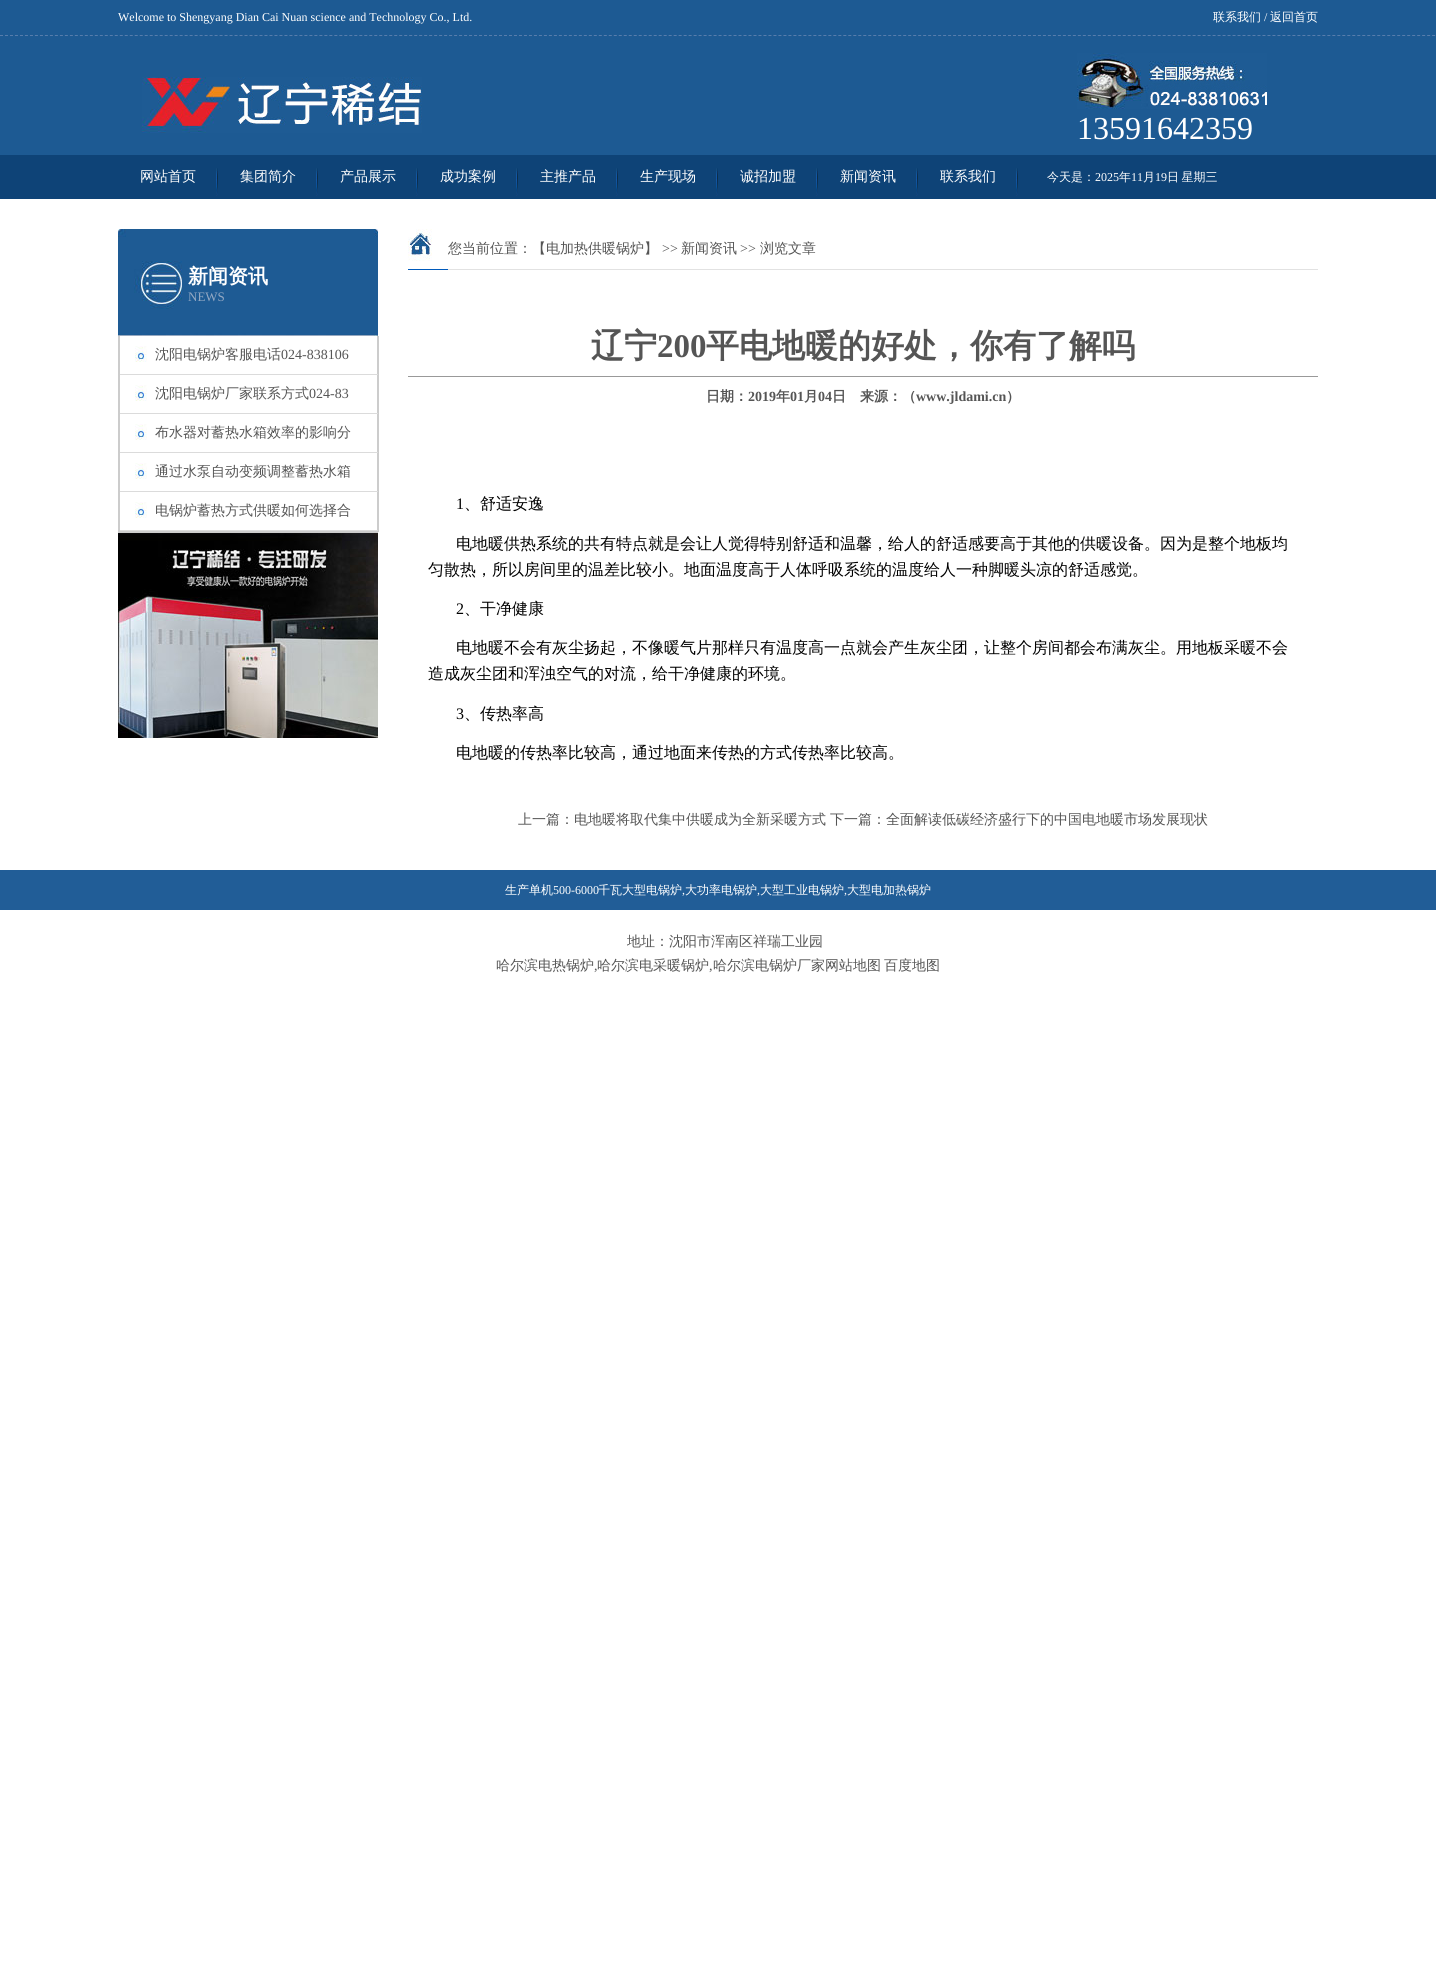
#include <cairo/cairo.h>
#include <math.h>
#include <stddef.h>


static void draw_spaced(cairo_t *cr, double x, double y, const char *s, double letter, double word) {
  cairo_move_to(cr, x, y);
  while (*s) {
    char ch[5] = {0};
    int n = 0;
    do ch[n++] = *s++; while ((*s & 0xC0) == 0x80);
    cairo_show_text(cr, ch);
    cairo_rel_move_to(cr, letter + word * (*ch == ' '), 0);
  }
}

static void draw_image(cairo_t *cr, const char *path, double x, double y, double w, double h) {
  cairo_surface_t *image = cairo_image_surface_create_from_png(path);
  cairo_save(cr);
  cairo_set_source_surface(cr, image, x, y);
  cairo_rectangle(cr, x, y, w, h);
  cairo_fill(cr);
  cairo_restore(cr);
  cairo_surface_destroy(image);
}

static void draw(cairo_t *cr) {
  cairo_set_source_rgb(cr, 1, 1, 1);
  cairo_paint(cr);
  cairo_set_source_rgb(cr, 29 / 255.0, 90 / 255.0, 147 / 255.0);
  cairo_rectangle(cr, 0, 0, 1436, 155);
  cairo_fill(cr);
  cairo_new_path(cr);
  cairo_move_to(cr, 0, 35.5);
  cairo_line_to(cr, 1436, 35.5);
  cairo_set_source_rgb(cr, 87 / 255.0, 125 / 255.0, 172 / 255.0);
  cairo_set_line_width(cr, 1);
  cairo_set_dash(cr, (double[]){3, 1.99}, 2, 0);
  cairo_stroke(cr);
  draw_image(cr, "images/1.png", 142, 77, 280, 56);
  draw_image(cr, "images/2.png", 1077, 53, 190, 56);
  cairo_set_source_rgb(cr, 14 / 255.0, 67 / 255.0, 119 / 255.0);
  cairo_rectangle(cr, 0, 155, 1436, 44);
  cairo_fill(cr);
  draw_image(cr, "images/3.png", 216, 168, 2, 28);
  draw_image(cr, "images/3.png", 316, 168, 2, 28);
  draw_image(cr, "images/3.png", 416, 168, 2, 28);
  draw_image(cr, "images/3.png", 516, 168, 2, 28);
  draw_image(cr, "images/3.png", 616, 168, 2, 28);
  draw_image(cr, "images/3.png", 716, 168, 2, 28);
  draw_image(cr, "images/3.png", 816, 168, 2, 28);
  draw_image(cr, "images/3.png", 916, 168, 2, 28);
  draw_image(cr, "images/3.png", 1016, 168, 2, 28);
  draw_image(cr, "images/4.png", 118, 229, 260, 107);
  cairo_set_source_rgb(cr, 204 / 255.0, 204 / 255.0, 204 / 255.0);
  cairo_rectangle(cr, 377, 336, 1, 197);
  cairo_fill(cr);
  cairo_rectangle(cr, 118, 532, 260, 1);
  cairo_fill(cr);
  cairo_rectangle(cr, 118, 336, 1, 197);
  cairo_fill(cr);
  cairo_rectangle(cr, 378, 336, 1, 196);
  cairo_fill(cr);
  cairo_rectangle(cr, 119, 531, 260, 1);
  cairo_fill(cr);
  cairo_rectangle(cr, 119, 336, 1, 196);
  cairo_fill(cr);
  draw_image(cr, "images/5.png", 135, 346, 12, 16);
  cairo_set_source_rgb(cr, 219 / 255.0, 219 / 255.0, 219 / 255.0);
  cairo_rectangle(cr, 120, 374, 258, 1);
  cairo_fill(cr);
  draw_image(cr, "images/5.png", 135, 385, 12, 16);
  cairo_rectangle(cr, 120, 413, 258, 1);
  cairo_fill(cr);
  draw_image(cr, "images/5.png", 135, 424, 12, 16);
  cairo_rectangle(cr, 120, 452, 258, 1);
  cairo_fill(cr);
  draw_image(cr, "images/5.png", 135, 463, 12, 16);
  cairo_rectangle(cr, 120, 491, 258, 1);
  cairo_fill(cr);
  draw_image(cr, "images/5.png", 135, 502, 12, 16);
  cairo_rectangle(cr, 120, 530, 258, 1);
  cairo_fill(cr);
  draw_image(cr, "images/6.png", 118, 533, 260, 205);
  cairo_set_source_rgb(cr, 0, 90 / 255.0, 187 / 255.0);
  cairo_rectangle(cr, 408, 269, 40, 1);
  cairo_fill(cr);
  draw_image(cr, "images/7.png", 408, 229, 24, 32);
  cairo_set_source_rgb(cr, 226 / 255.0, 226 / 255.0, 226 / 255.0);
  cairo_rectangle(cr, 448, 269, 870, 1);
  cairo_fill(cr);
  cairo_set_source_rgb(cr, 153 / 255.0, 153 / 255.0, 153 / 255.0);
  cairo_rectangle(cr, 408, 376, 910, 1);
  cairo_fill(cr);
  cairo_set_source_rgb(cr, 33 / 255.0, 93 / 255.0, 151 / 255.0);
  cairo_rectangle(cr, 0, 870, 1436, 40);
  cairo_fill(cr);
  cairo_select_font_face(cr, "Liberation Serif", CAIRO_FONT_SLANT_NORMAL, CAIRO_FONT_WEIGHT_NORMAL);
  cairo_set_font_size(cr, 12);
  cairo_set_source_rgb(cr, 1, 1, 1);
  cairo_move_to(cr, 118, 21);
  cairo_show_text(cr, "Welcome to Shengyang Dian Cai Nuan science and Technology Co., Ltd.");
  cairo_select_font_face(cr, "WenQuanYi Zen Hei Medium", CAIRO_FONT_SLANT_NORMAL, CAIRO_FONT_WEIGHT_NORMAL);
  cairo_move_to(cr, 1213, 21);
  cairo_show_text(cr, "联系我们");
  cairo_select_font_face(cr, "Liberation Serif", CAIRO_FONT_SLANT_NORMAL, CAIRO_FONT_WEIGHT_NORMAL);
  cairo_move_to(cr, 1264, 21);
  cairo_show_text(cr, "/");
  cairo_select_font_face(cr, "WenQuanYi Zen Hei Medium", CAIRO_FONT_SLANT_NORMAL, CAIRO_FONT_WEIGHT_NORMAL);
  cairo_move_to(cr, 1270, 21);
  cairo_show_text(cr, "返回首页");
  cairo_select_font_face(cr, "Liberation Serif", CAIRO_FONT_SLANT_NORMAL, CAIRO_FONT_WEIGHT_NORMAL);
  cairo_set_font_size(cr, 32);
  cairo_move_to(cr, 1077, 139);
  cairo_show_text(cr, "13591642359");
  cairo_select_font_face(cr, "WenQuanYi Zen Hei Medium", CAIRO_FONT_SLANT_NORMAL, CAIRO_FONT_WEIGHT_NORMAL);
  cairo_set_font_size(cr, 14);
  cairo_move_to(cr, 140, 181);
  cairo_show_text(cr, "网站首页");
  cairo_move_to(cr, 240, 181);
  cairo_show_text(cr, "集团简介");
  cairo_move_to(cr, 340, 181);
  cairo_show_text(cr, "产品展示");
  cairo_move_to(cr, 440, 181);
  cairo_show_text(cr, "成功案例");
  cairo_move_to(cr, 540, 181);
  cairo_show_text(cr, "主推产品");
  cairo_move_to(cr, 640, 181);
  cairo_show_text(cr, "生产现场");
  cairo_move_to(cr, 740, 181);
  cairo_show_text(cr, "诚招加盟");
  cairo_move_to(cr, 840, 181);
  cairo_show_text(cr, "新闻资讯");
  cairo_move_to(cr, 940, 181);
  cairo_show_text(cr, "联系我们");
  cairo_set_font_size(cr, 12);
  cairo_move_to(cr, 1047, 181);
  cairo_show_text(cr, "今天是：");
  cairo_select_font_face(cr, "Liberation Serif", CAIRO_FONT_SLANT_NORMAL, CAIRO_FONT_WEIGHT_NORMAL);
  cairo_move_to(cr, 1095, 181);
  cairo_show_text(cr, "2025");
  cairo_select_font_face(cr, "WenQuanYi Zen Hei Medium", CAIRO_FONT_SLANT_NORMAL, CAIRO_FONT_WEIGHT_NORMAL);
  cairo_move_to(cr, 1119, 181);
  cairo_show_text(cr, "年");
  cairo_select_font_face(cr, "Liberation Serif", CAIRO_FONT_SLANT_NORMAL, CAIRO_FONT_WEIGHT_NORMAL);
  cairo_move_to(cr, 1131, 181);
  cairo_show_text(cr, "11");
  cairo_select_font_face(cr, "WenQuanYi Zen Hei Medium", CAIRO_FONT_SLANT_NORMAL, CAIRO_FONT_WEIGHT_NORMAL);
  cairo_move_to(cr, 1143, 181);
  cairo_show_text(cr, "月");
  cairo_select_font_face(cr, "Liberation Serif", CAIRO_FONT_SLANT_NORMAL, CAIRO_FONT_WEIGHT_NORMAL);
  cairo_move_to(cr, 1155, 181);
  cairo_show_text(cr, "19");
  cairo_select_font_face(cr, "WenQuanYi Zen Hei Medium", CAIRO_FONT_SLANT_NORMAL, CAIRO_FONT_WEIGHT_NORMAL);
  draw_spaced(cr, 1167, 181, "日 星期三", 0, -1);
  cairo_select_font_face(cr, "WenQuanYi Zen Hei", CAIRO_FONT_SLANT_NORMAL, CAIRO_FONT_WEIGHT_BOLD);
  cairo_set_font_size(cr, 20);
  cairo_move_to(cr, 188, 283);
  cairo_show_text(cr, "新闻资讯");
  cairo_select_font_face(cr, "Liberation Serif", CAIRO_FONT_SLANT_NORMAL, CAIRO_FONT_WEIGHT_NORMAL);
  cairo_set_font_size(cr, 13);
  cairo_set_source_rgb(cr, 147 / 255.0, 168 / 255.0, 195 / 255.0);
  cairo_move_to(cr, 188, 301);
  cairo_show_text(cr, "NEWS");
  cairo_select_font_face(cr, "WenQuanYi Zen Hei Medium", CAIRO_FONT_SLANT_NORMAL, CAIRO_FONT_WEIGHT_NORMAL);
  cairo_set_font_size(cr, 14);
  cairo_set_source_rgb(cr, 85 / 255.0, 85 / 255.0, 85 / 255.0);
  cairo_move_to(cr, 155, 359);
  cairo_show_text(cr, "沈阳电锅炉客服电话");
  cairo_select_font_face(cr, "Liberation Serif", CAIRO_FONT_SLANT_NORMAL, CAIRO_FONT_WEIGHT_NORMAL);
  cairo_move_to(cr, 281, 359);
  cairo_show_text(cr, "024-838106");
  cairo_select_font_face(cr, "WenQuanYi Zen Hei Medium", CAIRO_FONT_SLANT_NORMAL, CAIRO_FONT_WEIGHT_NORMAL);
  cairo_move_to(cr, 155, 398);
  cairo_show_text(cr, "沈阳电锅炉厂家联系方式");
  cairo_select_font_face(cr, "Liberation Serif", CAIRO_FONT_SLANT_NORMAL, CAIRO_FONT_WEIGHT_NORMAL);
  cairo_move_to(cr, 309, 398);
  cairo_show_text(cr, "024-83");
  cairo_select_font_face(cr, "WenQuanYi Zen Hei Medium", CAIRO_FONT_SLANT_NORMAL, CAIRO_FONT_WEIGHT_NORMAL);
  cairo_move_to(cr, 155, 437);
  cairo_show_text(cr, "布水器对蓄热水箱效率的影响分");
  cairo_move_to(cr, 155, 476);
  cairo_show_text(cr, "通过水泵自动变频调整蓄热水箱");
  cairo_move_to(cr, 155, 515);
  cairo_show_text(cr, "电锅炉蓄热方式供暖如何选择合");
  cairo_move_to(cr, 448, 253);
  cairo_show_text(cr, "您当前位置：【电加热供暖锅炉】");
  cairo_select_font_face(cr, "Liberation Serif", CAIRO_FONT_SLANT_NORMAL, CAIRO_FONT_WEIGHT_NORMAL);
  cairo_move_to(cr, 662, 253);
  cairo_show_text(cr, ">>");
  cairo_select_font_face(cr, "WenQuanYi Zen Hei Medium", CAIRO_FONT_SLANT_NORMAL, CAIRO_FONT_WEIGHT_NORMAL);
  cairo_move_to(cr, 681, 253);
  cairo_show_text(cr, "新闻资讯");
  cairo_select_font_face(cr, "Liberation Serif", CAIRO_FONT_SLANT_NORMAL, CAIRO_FONT_WEIGHT_NORMAL);
  cairo_move_to(cr, 740, 253);
  cairo_show_text(cr, ">>");
  cairo_select_font_face(cr, "WenQuanYi Zen Hei Medium", CAIRO_FONT_SLANT_NORMAL, CAIRO_FONT_WEIGHT_NORMAL);
  cairo_move_to(cr, 760, 253);
  cairo_show_text(cr, "浏览文章");
  cairo_select_font_face(cr, "WenQuanYi Zen Hei", CAIRO_FONT_SLANT_NORMAL, CAIRO_FONT_WEIGHT_BOLD);
  cairo_set_font_size(cr, 33);
  cairo_move_to(cr, 591, 357);
  cairo_show_text(cr, "辽宁");
  cairo_select_font_face(cr, "Liberation Serif", CAIRO_FONT_SLANT_NORMAL, CAIRO_FONT_WEIGHT_BOLD);
  cairo_move_to(cr, 657, 357);
  cairo_show_text(cr, "200");
  cairo_select_font_face(cr, "WenQuanYi Zen Hei", CAIRO_FONT_SLANT_NORMAL, CAIRO_FONT_WEIGHT_BOLD);
  cairo_move_to(cr, 706, 357);
  cairo_show_text(cr, "平电地暖的好处，你有了解吗");
  cairo_set_font_size(cr, 14);
  cairo_move_to(cr, 706, 401);
  cairo_show_text(cr, "日期：");
  cairo_select_font_face(cr, "Liberation Serif", CAIRO_FONT_SLANT_NORMAL, CAIRO_FONT_WEIGHT_BOLD);
  cairo_move_to(cr, 748, 401);
  cairo_show_text(cr, "2019");
  cairo_select_font_face(cr, "WenQuanYi Zen Hei", CAIRO_FONT_SLANT_NORMAL, CAIRO_FONT_WEIGHT_BOLD);
  cairo_move_to(cr, 776, 401);
  cairo_show_text(cr, "年");
  cairo_select_font_face(cr, "Liberation Serif", CAIRO_FONT_SLANT_NORMAL, CAIRO_FONT_WEIGHT_BOLD);
  cairo_move_to(cr, 790, 401);
  cairo_show_text(cr, "01");
  cairo_select_font_face(cr, "WenQuanYi Zen Hei", CAIRO_FONT_SLANT_NORMAL, CAIRO_FONT_WEIGHT_BOLD);
  cairo_move_to(cr, 804, 401);
  cairo_show_text(cr, "月");
  cairo_select_font_face(cr, "Liberation Serif", CAIRO_FONT_SLANT_NORMAL, CAIRO_FONT_WEIGHT_BOLD);
  cairo_move_to(cr, 818, 401);
  cairo_show_text(cr, "04");
  cairo_select_font_face(cr, "WenQuanYi Zen Hei", CAIRO_FONT_SLANT_NORMAL, CAIRO_FONT_WEIGHT_BOLD);
  cairo_move_to(cr, 832, 401);
  cairo_show_text(cr, "日　来源：（");
  cairo_select_font_face(cr, "Liberation Serif", CAIRO_FONT_SLANT_NORMAL, CAIRO_FONT_WEIGHT_BOLD);
  cairo_move_to(cr, 916, 401);
  cairo_show_text(cr, "www.jldami.cn");
  cairo_select_font_face(cr, "WenQuanYi Zen Hei", CAIRO_FONT_SLANT_NORMAL, CAIRO_FONT_WEIGHT_BOLD);
  cairo_move_to(cr, 1006, 401);
  cairo_show_text(cr, "）");
  cairo_select_font_face(cr, "Liberation Serif", CAIRO_FONT_SLANT_NORMAL, CAIRO_FONT_WEIGHT_NORMAL);
  cairo_set_font_size(cr, 16);
  cairo_set_source_rgb(cr, 0, 0, 0);
  cairo_move_to(cr, 456, 509);
  cairo_show_text(cr, "1");
  cairo_select_font_face(cr, "WenQuanYi Zen Hei Medium", CAIRO_FONT_SLANT_NORMAL, CAIRO_FONT_WEIGHT_NORMAL);
  cairo_move_to(cr, 464, 509);
  cairo_show_text(cr, "、舒适安逸");
  cairo_move_to(cr, 456, 549);
  cairo_show_text(cr, "电地暖供热系统的共有特点就是会让人觉得特别舒适和温馨，给人的舒适感要高于其他的供暖设备。因为是整个地板均");
  cairo_move_to(cr, 428, 575);
  cairo_show_text(cr, "匀散热，所以房间里的温差比较小。地面温度高于人体呼吸系统的温度给人一种脚暖头凉的舒适感觉。");
  cairo_select_font_face(cr, "Liberation Serif", CAIRO_FONT_SLANT_NORMAL, CAIRO_FONT_WEIGHT_NORMAL);
  cairo_move_to(cr, 456, 614);
  cairo_show_text(cr, "2");
  cairo_select_font_face(cr, "WenQuanYi Zen Hei Medium", CAIRO_FONT_SLANT_NORMAL, CAIRO_FONT_WEIGHT_NORMAL);
  cairo_move_to(cr, 464, 614);
  cairo_show_text(cr, "、干净健康");
  cairo_move_to(cr, 456, 653);
  cairo_show_text(cr, "电地暖不会有灰尘扬起，不像暖气片那样只有温度高一点就会产生灰尘团，让整个房间都会布满灰尘。用地板采暖不会");
  cairo_move_to(cr, 428, 679);
  cairo_show_text(cr, "造成灰尘团和浑浊空气的对流，给干净健康的环境。");
  cairo_select_font_face(cr, "Liberation Serif", CAIRO_FONT_SLANT_NORMAL, CAIRO_FONT_WEIGHT_NORMAL);
  cairo_move_to(cr, 456, 719);
  cairo_show_text(cr, "3");
  cairo_select_font_face(cr, "WenQuanYi Zen Hei Medium", CAIRO_FONT_SLANT_NORMAL, CAIRO_FONT_WEIGHT_NORMAL);
  cairo_move_to(cr, 464, 719);
  cairo_show_text(cr, "、传热率高");
  cairo_move_to(cr, 456, 758);
  cairo_show_text(cr, "电地暖的传热率比较高，通过地面来传热的方式传热率比较高。");
  cairo_set_font_size(cr, 14);
  cairo_set_source_rgb(cr, 85 / 255.0, 85 / 255.0, 85 / 255.0);
  cairo_move_to(cr, 518, 824);
  cairo_show_text(cr, "上一篇：电地暖将取代集中供暖成为全新采暖方式");
  cairo_move_to(cr, 830, 824);
  cairo_show_text(cr, "下一篇：全面解读低碳经济盛行下的中国电地暖市场发展现状");
  cairo_set_font_size(cr, 12);
  cairo_set_source_rgb(cr, 1, 1, 1);
  cairo_move_to(cr, 505, 894);
  cairo_show_text(cr, "生产单机");
  cairo_select_font_face(cr, "Liberation Serif", CAIRO_FONT_SLANT_NORMAL, CAIRO_FONT_WEIGHT_NORMAL);
  cairo_move_to(cr, 553, 894);
  cairo_show_text(cr, "500-6000");
  cairo_select_font_face(cr, "WenQuanYi Zen Hei Medium", CAIRO_FONT_SLANT_NORMAL, CAIRO_FONT_WEIGHT_NORMAL);
  cairo_move_to(cr, 598, 894);
  cairo_show_text(cr, "千瓦大型电锅炉");
  cairo_select_font_face(cr, "Liberation Serif", CAIRO_FONT_SLANT_NORMAL, CAIRO_FONT_WEIGHT_NORMAL);
  cairo_move_to(cr, 682, 894);
  cairo_show_text(cr, ",");
  cairo_select_font_face(cr, "WenQuanYi Zen Hei Medium", CAIRO_FONT_SLANT_NORMAL, CAIRO_FONT_WEIGHT_NORMAL);
  cairo_move_to(cr, 685, 894);
  cairo_show_text(cr, "大功率电锅炉");
  cairo_select_font_face(cr, "Liberation Serif", CAIRO_FONT_SLANT_NORMAL, CAIRO_FONT_WEIGHT_NORMAL);
  cairo_move_to(cr, 757, 894);
  cairo_show_text(cr, ",");
  cairo_select_font_face(cr, "WenQuanYi Zen Hei Medium", CAIRO_FONT_SLANT_NORMAL, CAIRO_FONT_WEIGHT_NORMAL);
  cairo_move_to(cr, 760, 894);
  cairo_show_text(cr, "大型工业电锅炉");
  cairo_select_font_face(cr, "Liberation Serif", CAIRO_FONT_SLANT_NORMAL, CAIRO_FONT_WEIGHT_NORMAL);
  cairo_move_to(cr, 844, 894);
  cairo_show_text(cr, ",");
  cairo_select_font_face(cr, "WenQuanYi Zen Hei Medium", CAIRO_FONT_SLANT_NORMAL, CAIRO_FONT_WEIGHT_NORMAL);
  cairo_move_to(cr, 847, 894);
  cairo_show_text(cr, "大型电加热锅炉");
  cairo_set_font_size(cr, 14);
  cairo_set_source_rgb(cr, 85 / 255.0, 85 / 255.0, 85 / 255.0);
  cairo_move_to(cr, 627, 946);
  cairo_show_text(cr, "地址：沈阳市浑南区祥瑞工业园");
  cairo_move_to(cr, 496, 970);
  cairo_show_text(cr, "哈尔滨电热锅炉");
  cairo_select_font_face(cr, "Liberation Serif", CAIRO_FONT_SLANT_NORMAL, CAIRO_FONT_WEIGHT_NORMAL);
  cairo_move_to(cr, 594, 970);
  cairo_show_text(cr, ",");
  cairo_select_font_face(cr, "WenQuanYi Zen Hei Medium", CAIRO_FONT_SLANT_NORMAL, CAIRO_FONT_WEIGHT_NORMAL);
  cairo_move_to(cr, 597, 970);
  cairo_show_text(cr, "哈尔滨电采暖锅炉");
  cairo_select_font_face(cr, "Liberation Serif", CAIRO_FONT_SLANT_NORMAL, CAIRO_FONT_WEIGHT_NORMAL);
  cairo_move_to(cr, 709, 970);
  cairo_show_text(cr, ",");
  cairo_select_font_face(cr, "WenQuanYi Zen Hei Medium", CAIRO_FONT_SLANT_NORMAL, CAIRO_FONT_WEIGHT_NORMAL);
  cairo_move_to(cr, 713, 970);
  cairo_show_text(cr, "哈尔滨电锅炉厂家网站地图");
  cairo_move_to(cr, 884, 970);
  cairo_show_text(cr, "百度地图");
}

int main(void) {
  cairo_surface_t *surface = cairo_image_surface_create(CAIRO_FORMAT_RGB24, 1436, 1962);
  cairo_t *cr = cairo_create(surface);
  cairo_font_options_t *options = cairo_font_options_create();
  cairo_font_options_set_hint_metrics(options, CAIRO_HINT_METRICS_OFF);
  cairo_font_options_set_hint_style(options, CAIRO_HINT_STYLE_NONE);
  cairo_set_font_options(cr, options);
  cairo_set_miter_limit(cr, 4);
  draw(cr);
  cairo_surface_write_to_png(surface, "out.png");
  cairo_font_options_destroy(options);
  cairo_destroy(cr);
  cairo_surface_destroy(surface);
  return 0;
}
